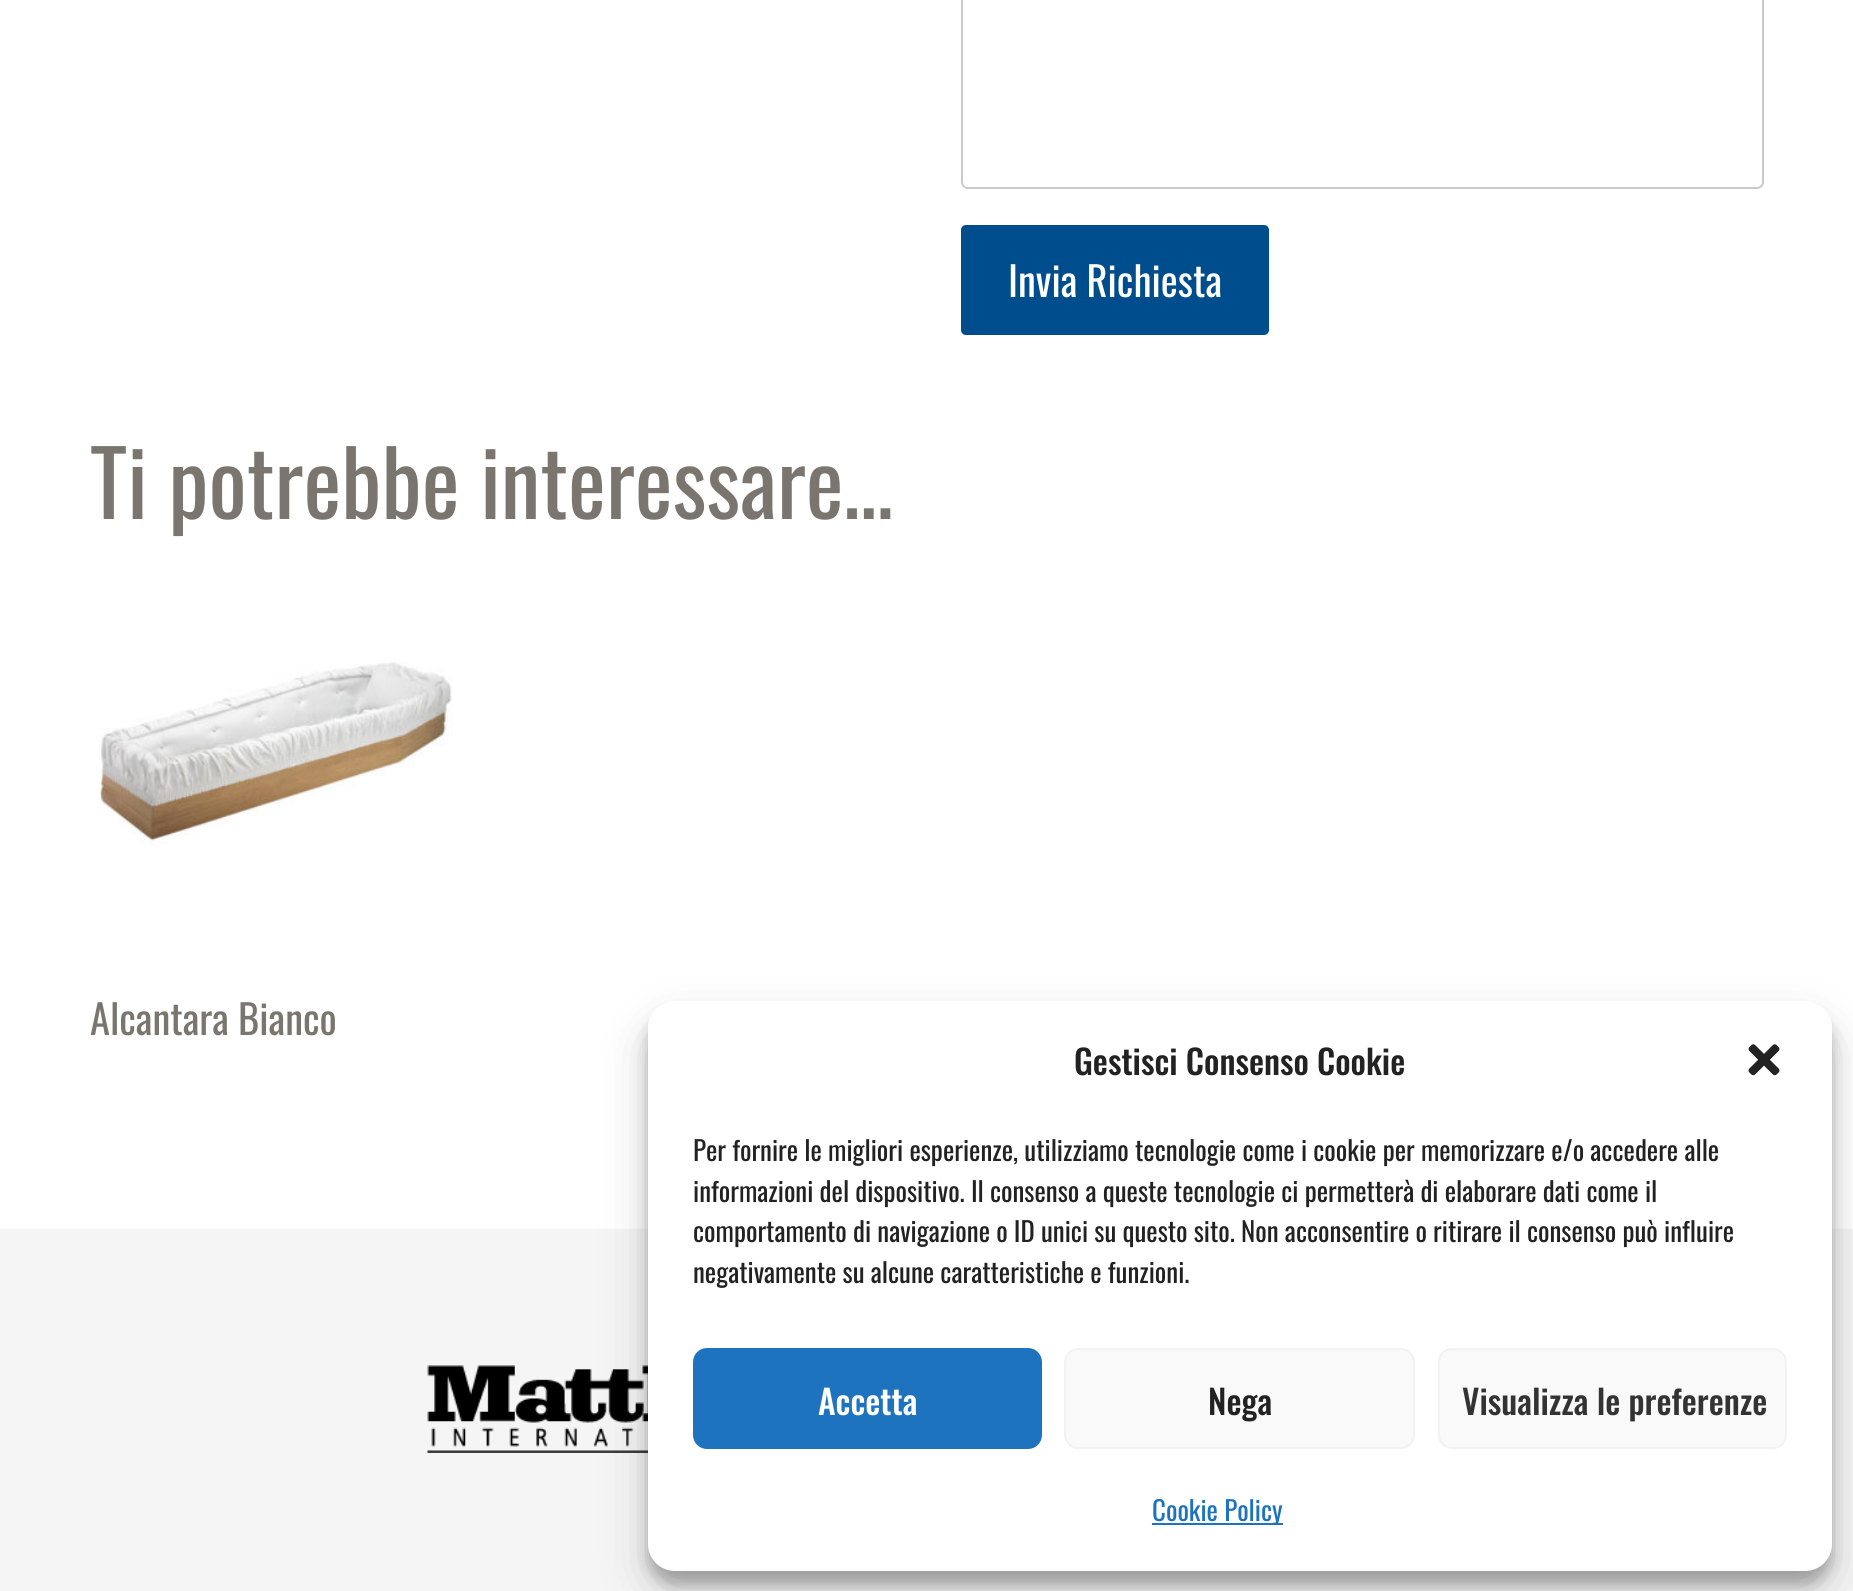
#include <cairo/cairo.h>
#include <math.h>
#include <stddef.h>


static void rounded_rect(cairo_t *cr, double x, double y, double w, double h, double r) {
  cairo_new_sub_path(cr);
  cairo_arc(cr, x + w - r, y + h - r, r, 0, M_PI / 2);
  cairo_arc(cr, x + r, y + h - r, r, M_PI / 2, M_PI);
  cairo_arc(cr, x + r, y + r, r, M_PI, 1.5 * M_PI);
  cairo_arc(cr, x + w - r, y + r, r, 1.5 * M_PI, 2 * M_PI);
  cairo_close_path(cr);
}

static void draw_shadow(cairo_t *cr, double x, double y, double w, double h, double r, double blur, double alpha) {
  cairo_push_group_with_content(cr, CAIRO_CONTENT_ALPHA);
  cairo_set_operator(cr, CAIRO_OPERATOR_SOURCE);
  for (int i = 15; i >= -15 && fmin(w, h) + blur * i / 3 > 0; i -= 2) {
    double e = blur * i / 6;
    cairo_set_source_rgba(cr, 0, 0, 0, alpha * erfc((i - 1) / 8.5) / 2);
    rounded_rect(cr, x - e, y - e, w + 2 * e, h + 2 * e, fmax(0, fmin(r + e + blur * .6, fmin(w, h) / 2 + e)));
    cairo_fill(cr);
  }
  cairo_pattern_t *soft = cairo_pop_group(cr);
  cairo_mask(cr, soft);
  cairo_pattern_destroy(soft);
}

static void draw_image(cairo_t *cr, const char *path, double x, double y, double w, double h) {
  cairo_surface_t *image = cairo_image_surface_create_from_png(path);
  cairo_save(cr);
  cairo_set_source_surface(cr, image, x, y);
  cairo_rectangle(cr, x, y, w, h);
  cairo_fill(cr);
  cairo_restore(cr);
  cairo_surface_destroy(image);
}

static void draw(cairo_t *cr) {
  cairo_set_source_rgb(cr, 1, 1, 1);
  cairo_paint(cr);
  rounded_rect(cr, 962, -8, 801, 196, 6);
  cairo_set_source_rgb(cr, 202 / 255.0, 202 / 255.0, 202 / 255.0);
  cairo_stroke(cr);
  cairo_set_source_rgb(cr, 0, 77 / 255.0, 141 / 255.0);
  rounded_rect(cr, 961, 225, 308, 110, 5);
  cairo_fill(cr);
  draw_image(cr, "images/1.png", 99, 662, 354, 183);
  cairo_set_source_rgb(cr, 245 / 255.0, 245 / 255.0, 245 / 255.0);
  cairo_rectangle(cr, 0, 1229, 1853, 362);
  cairo_fill(cr);
  draw_image(cr, "images/3.png", 427, 1365, 221, 88);
  cairo_set_source_rgb(cr, 0, 0, 0);
  draw_shadow(cr, 648, 1015, 1184, 569, 27, 7, 0.23);
  draw_shadow(cr, 648, 1024, 1184, 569, 27, 22.5, 0.19);
  cairo_set_source_rgb(cr, 1, 1, 1);
  rounded_rect(cr, 648, 1001, 1184, 570, 27);
  cairo_fill(cr);
  draw_image(cr, "images/2.png", 1748, 1044, 32, 32);
  cairo_set_source_rgb(cr, 30 / 255.0, 115 / 255.0, 190 / 255.0);
  rounded_rect(cr, 694, 1349, 347, 99, 13);
  cairo_fill_preserve(cr);
  cairo_stroke(cr);
  cairo_set_source_rgb(cr, 249 / 255.0, 249 / 255.0, 249 / 255.0);
  rounded_rect(cr, 1065, 1349, 349, 99, 13);
  cairo_fill_preserve(cr);
  cairo_set_source_rgb(cr, 242 / 255.0, 242 / 255.0, 242 / 255.0);
  cairo_stroke(cr);
  cairo_set_source_rgb(cr, 249 / 255.0, 249 / 255.0, 249 / 255.0);
  rounded_rect(cr, 1439, 1349, 347, 99, 13);
  cairo_fill_preserve(cr);
  cairo_set_source_rgb(cr, 242 / 255.0, 242 / 255.0, 242 / 255.0);
  cairo_stroke(cr);
  cairo_set_source_rgb(cr, 30 / 255.0, 115 / 255.0, 190 / 255.0);
  cairo_rectangle(cr, 1152, 1523, 131, 2);
  cairo_fill(cr);
  cairo_select_font_face(cr, "Oswald", CAIRO_FONT_SLANT_NORMAL, CAIRO_FONT_WEIGHT_NORMAL);
  cairo_set_font_size(cr, 40.5);
  cairo_set_source_rgb(cr, 1, 1, 1);
  cairo_move_to(cr, 1008, 297);
  cairo_show_text(cr, "Invia Richiesta");
  cairo_set_font_size(cr, 90);
  cairo_set_source_rgb(cr, 122 / 255.0, 118 / 255.0, 111 / 255.0);
  cairo_move_to(cr, 90, 519);
  cairo_show_text(cr, "Ti potrebbe interessare…");
  cairo_set_font_size(cr, 40.5);
  cairo_move_to(cr, 90, 1035);
  cairo_show_text(cr, "Alcantara Bianco");
  cairo_select_font_face(cr, "Oswald Medium", CAIRO_FONT_SLANT_NORMAL, CAIRO_FONT_WEIGHT_NORMAL);
  cairo_set_font_size(cr, 33.75);
  cairo_set_source_rgb(cr, 34 / 255.0, 34 / 255.0, 34 / 255.0);
  cairo_move_to(cr, 1074, 1075);
  cairo_show_text(cr, "Gestisci Consenso Cookie");
  cairo_select_font_face(cr, "Oswald", CAIRO_FONT_SLANT_NORMAL, CAIRO_FONT_WEIGHT_NORMAL);
  cairo_set_font_size(cr, 27);
  cairo_move_to(cr, 693, 1161);
  cairo_show_text(cr, "Per fornire le migliori esperienze, utilizziamo tecnologie come i cookie per memorizzare e/o accedere alle");
  cairo_move_to(cr, 693, 1202);
  cairo_show_text(cr, "informazioni del dispositivo. Il consenso a queste tecnologie ci permetterà di elaborare dati come il");
  cairo_move_to(cr, 693, 1242);
  cairo_show_text(cr, "comportamento di navigazione o ID unici su questo sito. Non acconsentire o ritirare il consenso può influire");
  cairo_move_to(cr, 693, 1283);
  cairo_show_text(cr, "negativamente su alcune caratteristiche e funzioni.");
  cairo_select_font_face(cr, "Oswald Medium", CAIRO_FONT_SLANT_NORMAL, CAIRO_FONT_WEIGHT_NORMAL);
  cairo_set_font_size(cr, 33.75);
  cairo_set_source_rgb(cr, 1, 1, 1);
  cairo_move_to(cr, 818, 1415);
  cairo_show_text(cr, "Accetta");
  cairo_set_source_rgb(cr, 34 / 255.0, 34 / 255.0, 34 / 255.0);
  cairo_move_to(cr, 1208, 1415);
  cairo_show_text(cr, "Nega");
  cairo_set_source_rgb(cr, 51 / 255.0, 51 / 255.0, 51 / 255.0);
  cairo_move_to(cr, 1462, 1415);
  cairo_show_text(cr, "Visualizza le preferenze");
  cairo_select_font_face(cr, "Oswald", CAIRO_FONT_SLANT_NORMAL, CAIRO_FONT_WEIGHT_NORMAL);
  cairo_set_font_size(cr, 27);
  cairo_set_source_rgb(cr, 30 / 255.0, 115 / 255.0, 190 / 255.0);
  cairo_move_to(cr, 1152, 1521);
  cairo_show_text(cr, "Cookie Policy");
}

int main(void) {
  cairo_surface_t *surface = cairo_image_surface_create(CAIRO_FORMAT_RGB24, 1853, 1591);
  cairo_t *cr = cairo_create(surface);
  cairo_font_options_t *options = cairo_font_options_create();
  cairo_font_options_set_hint_metrics(options, CAIRO_HINT_METRICS_OFF);
  cairo_font_options_set_hint_style(options, CAIRO_HINT_STYLE_NONE);
  cairo_set_font_options(cr, options);
  cairo_set_miter_limit(cr, 4);
  draw(cr);
  cairo_surface_write_to_png(surface, "out.png");
  cairo_font_options_destroy(options);
  cairo_destroy(cr);
  cairo_surface_destroy(surface);
  return 0;
}
